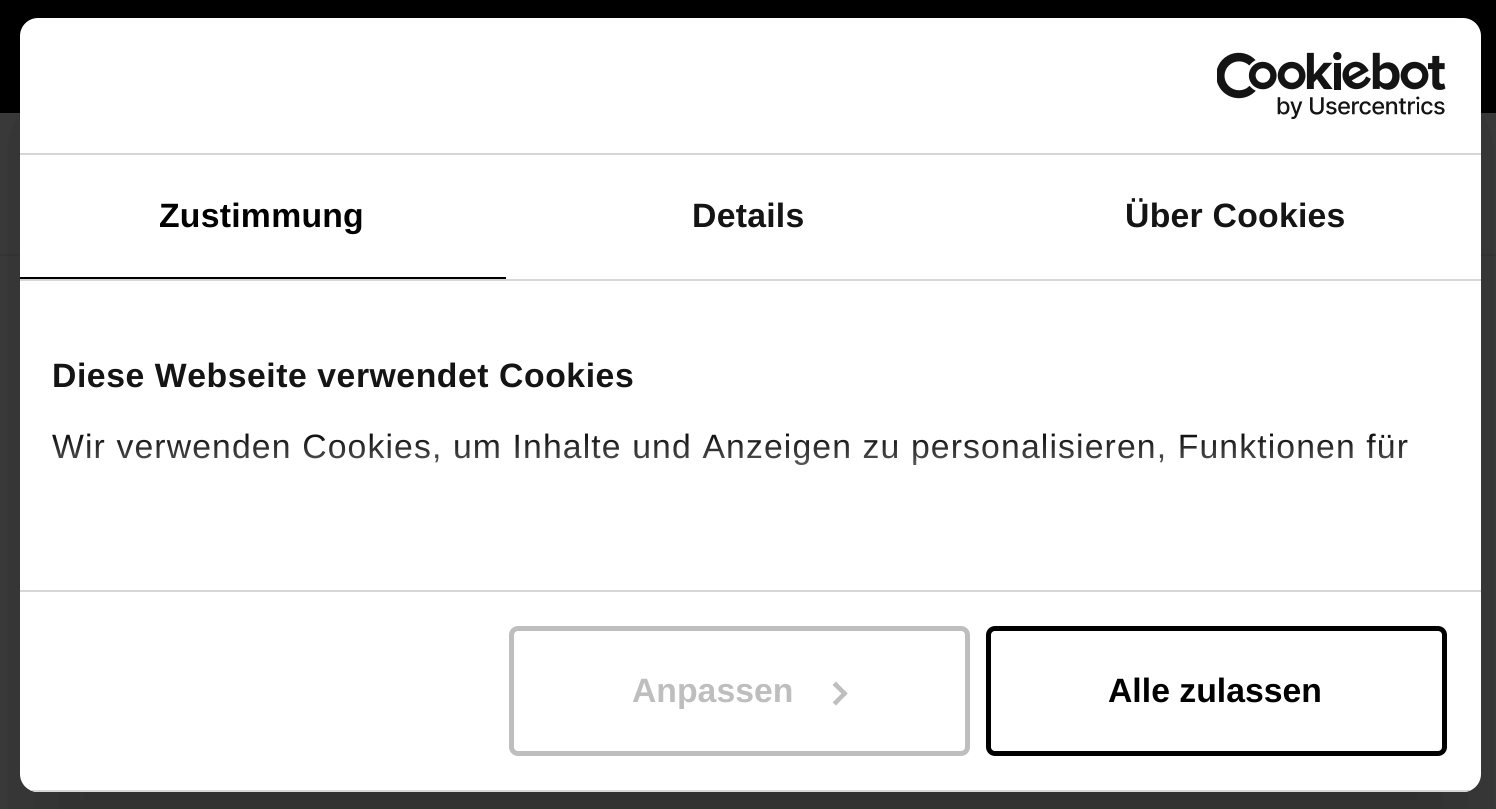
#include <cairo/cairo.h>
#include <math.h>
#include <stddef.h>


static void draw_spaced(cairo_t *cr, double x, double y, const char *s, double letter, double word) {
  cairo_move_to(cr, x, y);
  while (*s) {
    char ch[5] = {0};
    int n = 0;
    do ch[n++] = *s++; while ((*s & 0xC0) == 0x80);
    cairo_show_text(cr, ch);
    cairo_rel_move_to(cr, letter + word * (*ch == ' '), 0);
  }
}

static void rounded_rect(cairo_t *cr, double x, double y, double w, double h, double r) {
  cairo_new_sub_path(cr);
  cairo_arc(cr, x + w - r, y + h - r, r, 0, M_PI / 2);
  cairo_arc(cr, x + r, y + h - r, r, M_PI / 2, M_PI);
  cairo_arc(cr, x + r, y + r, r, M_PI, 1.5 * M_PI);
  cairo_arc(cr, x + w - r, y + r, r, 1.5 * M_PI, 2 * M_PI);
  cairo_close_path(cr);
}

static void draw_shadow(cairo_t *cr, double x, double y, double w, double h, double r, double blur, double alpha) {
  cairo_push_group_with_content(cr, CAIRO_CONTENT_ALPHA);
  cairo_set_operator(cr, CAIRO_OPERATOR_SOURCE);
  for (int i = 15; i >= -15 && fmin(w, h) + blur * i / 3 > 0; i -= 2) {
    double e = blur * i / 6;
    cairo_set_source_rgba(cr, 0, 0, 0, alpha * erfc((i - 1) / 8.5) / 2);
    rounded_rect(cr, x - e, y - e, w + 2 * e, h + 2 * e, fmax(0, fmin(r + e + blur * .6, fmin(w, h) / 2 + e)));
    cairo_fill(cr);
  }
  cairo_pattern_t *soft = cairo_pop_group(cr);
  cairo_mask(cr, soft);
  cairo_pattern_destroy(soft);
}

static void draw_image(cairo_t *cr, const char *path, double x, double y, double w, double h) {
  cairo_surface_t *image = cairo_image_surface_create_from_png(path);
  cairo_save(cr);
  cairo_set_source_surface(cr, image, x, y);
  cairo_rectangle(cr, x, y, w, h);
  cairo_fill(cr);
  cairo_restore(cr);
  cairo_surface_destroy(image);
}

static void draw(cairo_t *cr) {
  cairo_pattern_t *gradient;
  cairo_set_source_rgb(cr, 64 / 255.0, 64 / 255.0, 64 / 255.0);
  cairo_paint(cr);
  cairo_set_source_rgb(cr, 0, 0, 0);
  cairo_rectangle(cr, 0, 0, 1496, 113);
  cairo_fill(cr);
  cairo_set_source_rgb(cr, 59 / 255.0, 59 / 255.0, 59 / 255.0);
  cairo_rectangle(cr, 0, 254, 1496, 2);
  cairo_fill(cr);
  cairo_set_source_rgb(cr, 0, 0, 0);
  draw_shadow(cr, 20, 90, 1461, 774, 18, 76.5, 0.3);
  cairo_set_source_rgb(cr, 1, 1, 1);
  rounded_rect(cr, 20, 18, 1461, 774, 18);
  cairo_fill(cr);
  cairo_set_source_rgb(cr, 214 / 255.0, 214 / 255.0, 214 / 255.0);
  cairo_rectangle(cr, 20, 153, 1461, 2);
  cairo_fill(cr);
  draw_image(cr, "images/1.png", 1217, 52, 229, 67);
  cairo_rectangle(cr, 20, 279, 1461, 2);
  cairo_fill(cr);
  cairo_set_source_rgb(cr, 0, 0, 0);
  cairo_rectangle(cr, 20, 277, 486, 2);
  cairo_fill(cr);
  cairo_set_source_rgb(cr, 214 / 255.0, 214 / 255.0, 214 / 255.0);
  cairo_rectangle(cr, 20, 590, 1461, 2);
  cairo_fill(cr);
  cairo_save(cr);
  rounded_rect(cr, 20, 18, 1461, 774, 18);
  cairo_clip(cr);
  cairo_rectangle(cr, 30, 790, 1441, 2);
  cairo_fill(cr);
  cairo_restore(cr);
  rounded_rect(cr, 511.5, 628.5, 456, 125, 6.5);
  cairo_set_source_rgb(cr, 190 / 255.0, 190 / 255.0, 190 / 255.0);
  cairo_set_line_width(cr, 5);
  cairo_stroke(cr);
  cairo_new_path(cr);
  cairo_move_to(cr, 836, 681.5);
  cairo_line_to(cr, 847.5, 693.5);
  cairo_line_to(cr, 844.5, 696.5);
  cairo_line_to(cr, 832.5, 685);
  cairo_close_path(cr);
  cairo_fill(cr);
  cairo_new_path(cr);
  cairo_move_to(cr, 844.5, 690.5);
  cairo_line_to(cr, 847.5, 693.5);
  cairo_line_to(cr, 836, 705.5);
  cairo_line_to(cr, 832.5, 702.5);
  cairo_close_path(cr);
  cairo_fill(cr);
  rounded_rect(cr, 988.5, 628.5, 456, 125, 6.5);
  cairo_set_source_rgb(cr, 0, 0, 0);
  cairo_stroke(cr);
  cairo_select_font_face(cr, "Liberation Sans", CAIRO_FONT_SLANT_NORMAL, CAIRO_FONT_WEIGHT_BOLD);
  cairo_set_font_size(cr, 33.75);
  draw_spaced(cr, 159, 227, "Zustimmung", 0.25, 0);
  cairo_set_source_rgb(cr, 20 / 255.0, 20 / 255.0, 20 / 255.0);
  draw_spaced(cr, 692, 227, "Details", 0.25, 0);
  draw_spaced(cr, 1125, 227, "Über Cookies", 0.25, 0);
  draw_spaced(cr, 52, 387, "Diese Webseite verwendet Cookies", 0.55, 0);
  cairo_select_font_face(cr, "Liberation Sans", CAIRO_FONT_SLANT_NORMAL, CAIRO_FONT_WEIGHT_NORMAL);
  draw_spaced(cr, 52, 458, "Wir verwenden Cookies, um Inhalte und Anzeigen zu personalisieren, Funktionen für", 1.12, 0);
  gradient = cairo_pattern_create_linear(735, 590, 735, 437);
  cairo_pattern_add_color_stop_rgba(gradient, 0, 1, 1, 1, 1);
  cairo_pattern_add_color_stop_rgba(gradient, 0.5, 1, 1, 1, 0.8);
  cairo_pattern_add_color_stop_rgba(gradient, 1, 1, 1, 1, 0);
  cairo_set_source(cr, gradient);
  cairo_pattern_destroy(gradient);
  cairo_rectangle(cr, 53, 439, 1355, 26);
  cairo_fill(cr);
  cairo_select_font_face(cr, "Liberation Sans", CAIRO_FONT_SLANT_NORMAL, CAIRO_FONT_WEIGHT_BOLD);
  cairo_set_source_rgb(cr, 190 / 255.0, 190 / 255.0, 190 / 255.0);
  cairo_move_to(cr, 632, 702);
  cairo_show_text(cr, "Anpassen");
  cairo_set_source_rgb(cr, 0, 0, 0);
  cairo_move_to(cr, 1108, 702);
  cairo_show_text(cr, "Alle zulassen");
}

int main(void) {
  cairo_surface_t *surface = cairo_image_surface_create(CAIRO_FORMAT_RGB24, 1496, 809);
  cairo_t *cr = cairo_create(surface);
  cairo_font_options_t *options = cairo_font_options_create();
  cairo_font_options_set_hint_metrics(options, CAIRO_HINT_METRICS_OFF);
  cairo_font_options_set_hint_style(options, CAIRO_HINT_STYLE_NONE);
  cairo_set_font_options(cr, options);
  cairo_set_miter_limit(cr, 4);
  draw(cr);
  cairo_surface_write_to_png(surface, "out.png");
  cairo_font_options_destroy(options);
  cairo_destroy(cr);
  cairo_surface_destroy(surface);
  return 0;
}
